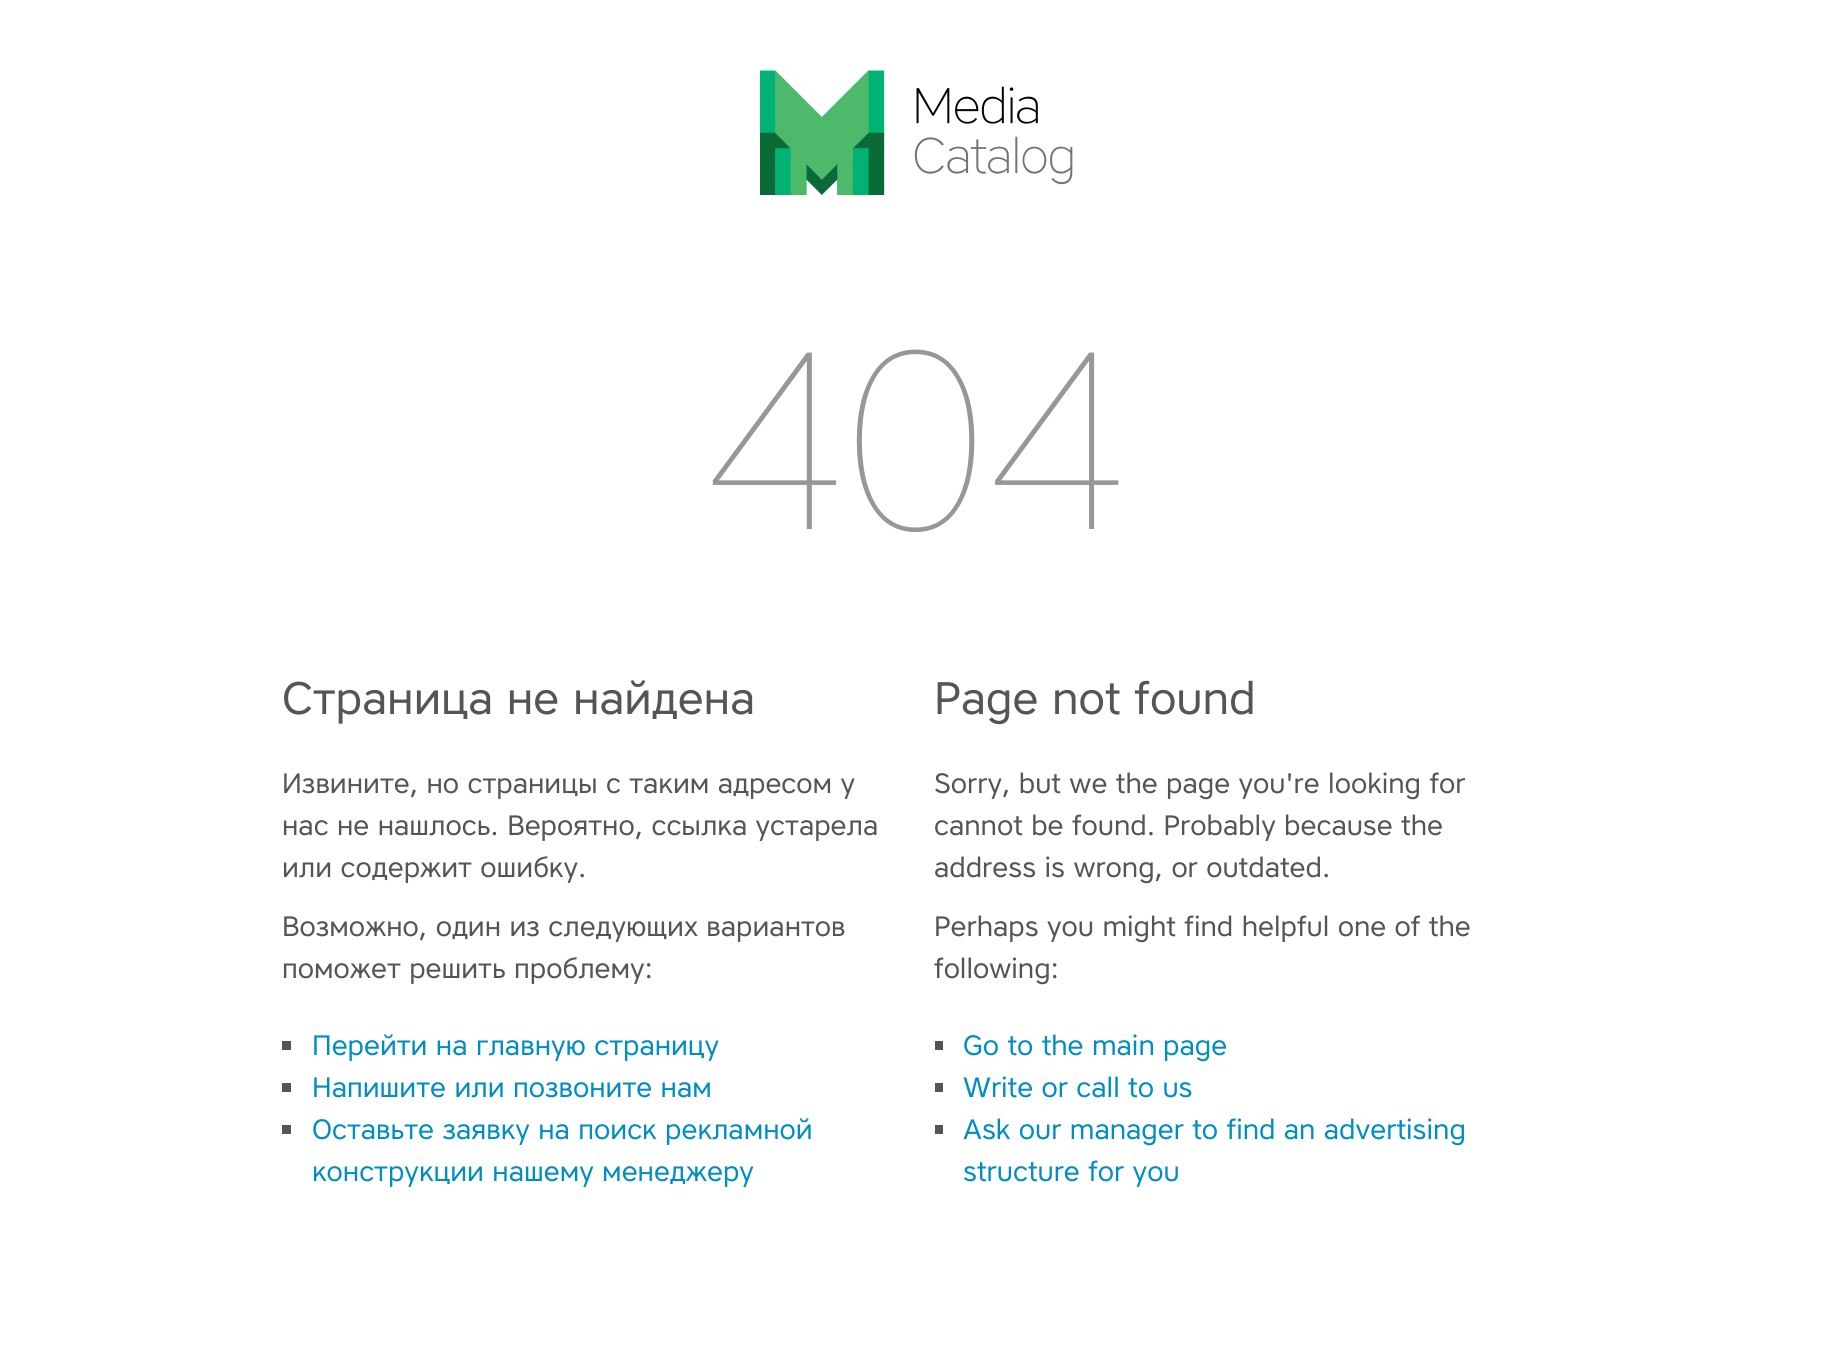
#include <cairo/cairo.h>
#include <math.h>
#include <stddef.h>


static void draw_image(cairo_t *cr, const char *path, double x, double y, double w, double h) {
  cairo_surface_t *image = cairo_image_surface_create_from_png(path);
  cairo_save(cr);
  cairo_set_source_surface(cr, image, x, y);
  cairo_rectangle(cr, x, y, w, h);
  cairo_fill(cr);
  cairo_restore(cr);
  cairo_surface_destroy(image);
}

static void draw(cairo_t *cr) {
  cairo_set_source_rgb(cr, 1, 1, 1);
  cairo_paint(cr);
  draw_image(cr, "images/1.png", 760, 70, 313, 125);
  cairo_set_source_rgb(cr, 85 / 255.0, 85 / 255.0, 85 / 255.0);
  cairo_rectangle(cr, 282, 1041, 9, 9);
  cairo_fill(cr);
  cairo_rectangle(cr, 282, 1083, 9, 9);
  cairo_fill(cr);
  cairo_rectangle(cr, 282, 1125, 9, 9);
  cairo_fill(cr);
  cairo_rectangle(cr, 935, 1041, 8, 9);
  cairo_fill(cr);
  cairo_rectangle(cr, 935, 1083, 8, 9);
  cairo_fill(cr);
  cairo_rectangle(cr, 935, 1125, 8, 9);
  cairo_fill(cr);
  cairo_select_font_face(cr, "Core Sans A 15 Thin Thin", CAIRO_FONT_SLANT_NORMAL, CAIRO_FONT_WEIGHT_NORMAL);
  cairo_set_font_size(cr, 252);
  cairo_set_source_rgb(cr, 151 / 255.0, 151 / 255.0, 151 / 255.0);
  cairo_move_to(cr, 704, 529);
  cairo_show_text(cr, "404");
  cairo_select_font_face(cr, "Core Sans", CAIRO_FONT_SLANT_NORMAL, CAIRO_FONT_WEIGHT_NORMAL);
  cairo_set_font_size(cr, 45.5);
  cairo_set_source_rgb(cr, 85 / 255.0, 85 / 255.0, 85 / 255.0);
  cairo_move_to(cr, 282, 714);
  cairo_show_text(cr, "Страница не найдена");
  cairo_set_font_size(cr, 28);
  cairo_move_to(cr, 282, 793);
  cairo_show_text(cr, "Извините, но страницы с таким адресом у");
  cairo_move_to(cr, 282, 835);
  cairo_show_text(cr, "нас не нашлось. Вероятно, ссылка устарела");
  cairo_move_to(cr, 282, 877);
  cairo_show_text(cr, "или содержит ошибку.");
  cairo_move_to(cr, 282, 936);
  cairo_show_text(cr, "Возможно, один из следующих вариантов");
  cairo_move_to(cr, 282, 978);
  cairo_show_text(cr, "поможет решить проблему:");
  cairo_set_source_rgb(cr, 0, 141 / 255.0, 193 / 255.0);
  cairo_move_to(cr, 312, 1055);
  cairo_show_text(cr, "Перейти на главную страницу");
  cairo_move_to(cr, 312, 1097);
  cairo_show_text(cr, "Напишите или позвоните нам");
  cairo_move_to(cr, 312, 1139);
  cairo_show_text(cr, "Оставьте заявку на поиск рекламной");
  cairo_move_to(cr, 312, 1181);
  cairo_show_text(cr, "конструкции нашему менеджеру");
  cairo_set_font_size(cr, 45.5);
  cairo_set_source_rgb(cr, 85 / 255.0, 85 / 255.0, 85 / 255.0);
  cairo_move_to(cr, 934, 714);
  cairo_show_text(cr, "Page not found");
  cairo_set_font_size(cr, 28);
  cairo_move_to(cr, 934, 793);
  cairo_show_text(cr, "Sorry, but we the page you're looking for");
  cairo_move_to(cr, 934, 835);
  cairo_show_text(cr, "cannot be found. Probably because the");
  cairo_move_to(cr, 934, 877);
  cairo_show_text(cr, "address is wrong, or outdated.");
  cairo_move_to(cr, 934, 936);
  cairo_show_text(cr, "Perhaps you might find helpful one of the");
  cairo_move_to(cr, 934, 978);
  cairo_show_text(cr, "following:");
  cairo_set_source_rgb(cr, 0, 141 / 255.0, 193 / 255.0);
  cairo_move_to(cr, 963, 1055);
  cairo_show_text(cr, "Go to the main page");
  cairo_move_to(cr, 963, 1097);
  cairo_show_text(cr, "Write or call to us");
  cairo_move_to(cr, 963, 1139);
  cairo_show_text(cr, "Ask our manager to find an advertising");
  cairo_move_to(cr, 963, 1181);
  cairo_show_text(cr, "structure for you");
}

int main(void) {
  cairo_surface_t *surface = cairo_image_surface_create(CAIRO_FORMAT_RGB24, 1832, 1363);
  cairo_t *cr = cairo_create(surface);
  cairo_font_options_t *options = cairo_font_options_create();
  cairo_font_options_set_hint_metrics(options, CAIRO_HINT_METRICS_OFF);
  cairo_font_options_set_hint_style(options, CAIRO_HINT_STYLE_NONE);
  cairo_set_font_options(cr, options);
  cairo_set_miter_limit(cr, 4);
  draw(cr);
  cairo_surface_write_to_png(surface, "out.png");
  cairo_font_options_destroy(options);
  cairo_destroy(cr);
  cairo_surface_destroy(surface);
  return 0;
}
